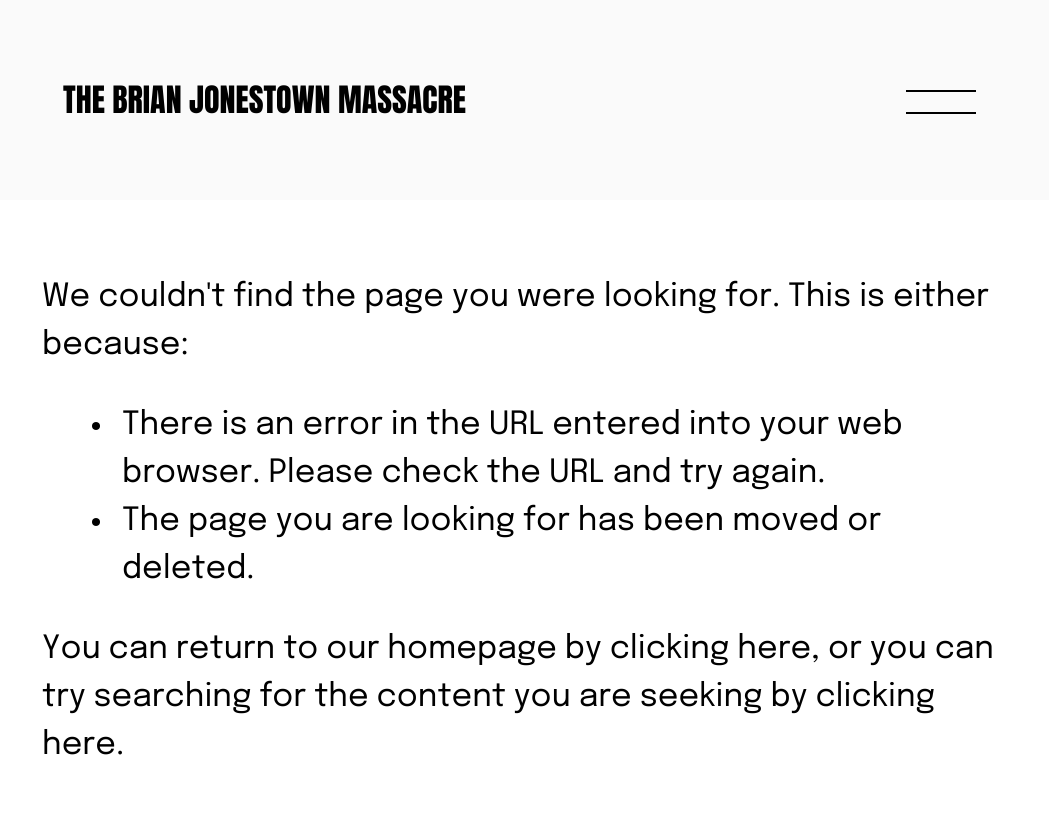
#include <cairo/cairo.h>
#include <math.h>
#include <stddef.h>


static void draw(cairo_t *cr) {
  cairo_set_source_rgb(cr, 1, 1, 1);
  cairo_paint(cr);
  cairo_set_source_rgb(cr, 250 / 255.0, 250 / 255.0, 250 / 255.0);
  cairo_rectangle(cr, 0, 0, 1049, 200);
  cairo_fill(cr);
  cairo_set_source_rgb(cr, 0, 0, 0);
  cairo_rectangle(cr, 906, 90, 70, 2);
  cairo_fill(cr);
  cairo_rectangle(cr, 906, 112, 70, 2);
  cairo_fill(cr);
  cairo_arc(cr, 96, 426, 4, 0, 2 * M_PI);
  cairo_fill(cr);
  cairo_arc(cr, 96, 522, 4, 0, 2 * M_PI);
  cairo_fill(cr);
  cairo_select_font_face(cr, "Anton", CAIRO_FONT_SLANT_NORMAL, CAIRO_FONT_WEIGHT_NORMAL);
  cairo_set_font_size(cr, 32);
  cairo_move_to(cr, 63, 113);
  cairo_show_text(cr, "THE BRIAN JONESTOWN MASSACRE");
  cairo_select_font_face(cr, "Epilogue", CAIRO_FONT_SLANT_NORMAL, CAIRO_FONT_WEIGHT_NORMAL);
  cairo_move_to(cr, 42, 306);
  cairo_show_text(cr, "We couldn't find the page you were looking for. This is either");
  cairo_move_to(cr, 42, 354);
  cairo_show_text(cr, "because:");
  cairo_move_to(cr, 122, 434);
  cairo_show_text(cr, "There is an error in the URL entered into your web");
  cairo_move_to(cr, 122, 482);
  cairo_show_text(cr, "browser. Please check the URL and try again.");
  cairo_move_to(cr, 122, 530);
  cairo_show_text(cr, "The page you are looking for has been moved or");
  cairo_move_to(cr, 122, 578);
  cairo_show_text(cr, "deleted.");
  cairo_move_to(cr, 42, 658);
  cairo_show_text(cr, "You can return to our homepage by clicking here, or you can");
  cairo_move_to(cr, 42, 706);
  cairo_show_text(cr, "try searching for the content you are seeking by clicking");
  cairo_move_to(cr, 42, 754);
  cairo_show_text(cr, "here.");
}

int main(void) {
  cairo_surface_t *surface = cairo_image_surface_create(CAIRO_FORMAT_RGB24, 1049, 829);
  cairo_t *cr = cairo_create(surface);
  cairo_font_options_t *options = cairo_font_options_create();
  cairo_font_options_set_hint_metrics(options, CAIRO_HINT_METRICS_OFF);
  cairo_font_options_set_hint_style(options, CAIRO_HINT_STYLE_NONE);
  cairo_set_font_options(cr, options);
  cairo_set_miter_limit(cr, 4);
  draw(cr);
  cairo_surface_write_to_png(surface, "out.png");
  cairo_font_options_destroy(options);
  cairo_destroy(cr);
  cairo_surface_destroy(surface);
  return 0;
}
